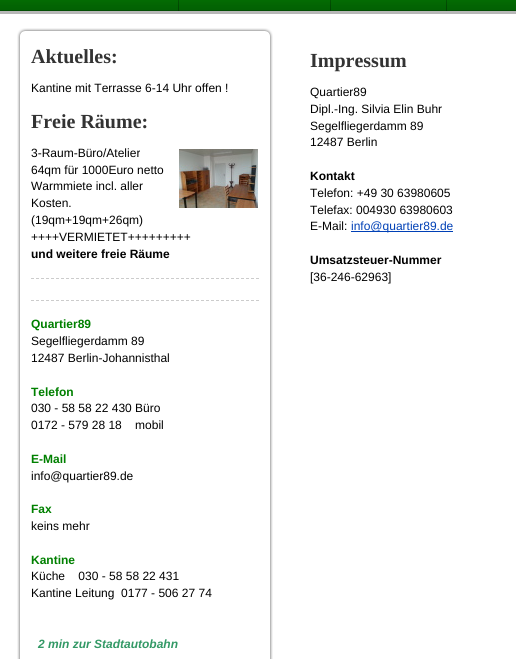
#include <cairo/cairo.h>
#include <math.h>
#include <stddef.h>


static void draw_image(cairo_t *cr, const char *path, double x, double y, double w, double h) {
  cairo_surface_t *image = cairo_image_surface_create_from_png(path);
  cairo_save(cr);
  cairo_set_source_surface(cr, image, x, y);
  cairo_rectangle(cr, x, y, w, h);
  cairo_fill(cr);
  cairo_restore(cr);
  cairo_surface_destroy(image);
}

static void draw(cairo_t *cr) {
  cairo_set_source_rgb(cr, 1, 1, 1);
  cairo_paint(cr);
  cairo_set_source_rgb(cr, 3 / 255.0, 122 / 255.0, 4 / 255.0);
  cairo_rectangle(cr, 0, 0, 516, 11);
  cairo_fill(cr);
  draw_image(cr, "images/1.png", 0, 0, 516, 11);
  draw_image(cr, "images/2.png", 178, 0, 1, 11);
  draw_image(cr, "images/2.png", 330, 0, 1, 11);
  draw_image(cr, "images/2.png", 446, 0, 1, 11);
  cairo_set_source_rgb(cr, 183 / 255.0, 183 / 255.0, 183 / 255.0);
  cairo_rectangle(cr, 0, 11, 516, 3);
  cairo_fill(cr);
  draw_image(cr, "images/3.png", 17, 28, 256, 9);
  draw_image(cr, "images/4.png", 17, 37, 256, 622);
  draw_image(cr, "images/5.png", 179, 149, 79, 59);
  cairo_new_path(cr);
  cairo_move_to(cr, 31, 278.5);
  cairo_line_to(cr, 259, 278.5);
  cairo_set_source_rgb(cr, 204 / 255.0, 204 / 255.0, 204 / 255.0);
  cairo_set_line_width(cr, 1);
  cairo_set_dash(cr, (double[]){3, 2}, 2, 0);
  cairo_stroke(cr);
  cairo_new_path(cr);
  cairo_move_to(cr, 31, 300.5);
  cairo_line_to(cr, 259, 300.5);
  cairo_stroke(cr);
  cairo_set_source_rgb(cr, 0, 64 / 255.0, 182 / 255.0);
  cairo_rectangle(cr, 351, 231, 102, 1);
  cairo_fill(cr);
  cairo_select_font_face(cr, "Liberation Serif", CAIRO_FONT_SLANT_NORMAL, CAIRO_FONT_WEIGHT_BOLD);
  cairo_set_font_size(cr, 20);
  cairo_set_source_rgb(cr, 51 / 255.0, 51 / 255.0, 51 / 255.0);
  cairo_move_to(cr, 31, 63);
  cairo_show_text(cr, "Aktuelles:");
  cairo_select_font_face(cr, "Liberation Sans", CAIRO_FONT_SLANT_NORMAL, CAIRO_FONT_WEIGHT_NORMAL);
  cairo_set_font_size(cr, 12);
  cairo_set_source_rgb(cr, 0, 0, 0);
  cairo_move_to(cr, 31, 92);
  cairo_show_text(cr, "Kantine mit Terrasse 6-14 Uhr offen !");
  cairo_select_font_face(cr, "Liberation Serif", CAIRO_FONT_SLANT_NORMAL, CAIRO_FONT_WEIGHT_BOLD);
  cairo_set_font_size(cr, 20);
  cairo_set_source_rgb(cr, 51 / 255.0, 51 / 255.0, 51 / 255.0);
  cairo_move_to(cr, 31, 128);
  cairo_show_text(cr, "Freie Räume:");
  cairo_select_font_face(cr, "Liberation Sans", CAIRO_FONT_SLANT_NORMAL, CAIRO_FONT_WEIGHT_NORMAL);
  cairo_set_font_size(cr, 12);
  cairo_set_source_rgb(cr, 0, 0, 0);
  cairo_move_to(cr, 31, 157);
  cairo_show_text(cr, "3-Raum-Büro/Atelier");
  cairo_move_to(cr, 31, 174);
  cairo_show_text(cr, "64qm für 1000Euro netto");
  cairo_move_to(cr, 31, 190);
  cairo_show_text(cr, "Warmmiete incl. aller");
  cairo_move_to(cr, 31, 207);
  cairo_show_text(cr, "Kosten.");
  cairo_move_to(cr, 31, 224);
  cairo_show_text(cr, "(19qm+19qm+26qm)");
  cairo_move_to(cr, 31, 241);
  cairo_show_text(cr, "++++VERMIETET+++++++++");
  cairo_select_font_face(cr, "Liberation Sans", CAIRO_FONT_SLANT_NORMAL, CAIRO_FONT_WEIGHT_BOLD);
  cairo_move_to(cr, 31, 258);
  cairo_show_text(cr, "und weitere freie Räume");
  cairo_set_source_rgb(cr, 0, 128 / 255.0, 0);
  cairo_move_to(cr, 31, 328);
  cairo_show_text(cr, "Quartier89");
  cairo_select_font_face(cr, "Liberation Sans", CAIRO_FONT_SLANT_NORMAL, CAIRO_FONT_WEIGHT_NORMAL);
  cairo_set_source_rgb(cr, 0, 0, 0);
  cairo_move_to(cr, 31, 345);
  cairo_show_text(cr, "Segelfliegerdamm 89");
  cairo_move_to(cr, 31, 362);
  cairo_show_text(cr, "12487 Berlin-Johannisthal");
  cairo_select_font_face(cr, "Liberation Sans", CAIRO_FONT_SLANT_NORMAL, CAIRO_FONT_WEIGHT_BOLD);
  cairo_set_source_rgb(cr, 0, 128 / 255.0, 0);
  cairo_move_to(cr, 31, 396);
  cairo_show_text(cr, "Telefon");
  cairo_select_font_face(cr, "Liberation Sans", CAIRO_FONT_SLANT_NORMAL, CAIRO_FONT_WEIGHT_NORMAL);
  cairo_set_source_rgb(cr, 0, 0, 0);
  cairo_move_to(cr, 31, 412);
  cairo_show_text(cr, "030 - 58 58 22 430 Büro");
  cairo_move_to(cr, 31, 429);
  cairo_show_text(cr, "0172 - 579 28 18    mobil");
  cairo_select_font_face(cr, "Liberation Sans", CAIRO_FONT_SLANT_NORMAL, CAIRO_FONT_WEIGHT_BOLD);
  cairo_set_source_rgb(cr, 0, 128 / 255.0, 0);
  cairo_move_to(cr, 31, 463);
  cairo_show_text(cr, "E-Mail");
  cairo_select_font_face(cr, "Liberation Sans", CAIRO_FONT_SLANT_NORMAL, CAIRO_FONT_WEIGHT_NORMAL);
  cairo_set_source_rgb(cr, 0, 0, 0);
  cairo_move_to(cr, 31, 480);
  cairo_show_text(cr, "info@quartier89.de");
  cairo_select_font_face(cr, "Liberation Sans", CAIRO_FONT_SLANT_NORMAL, CAIRO_FONT_WEIGHT_BOLD);
  cairo_set_source_rgb(cr, 0, 128 / 255.0, 0);
  cairo_move_to(cr, 31, 513);
  cairo_show_text(cr, "Fax");
  cairo_select_font_face(cr, "Liberation Sans", CAIRO_FONT_SLANT_NORMAL, CAIRO_FONT_WEIGHT_NORMAL);
  cairo_set_source_rgb(cr, 0, 0, 0);
  cairo_move_to(cr, 31, 530);
  cairo_show_text(cr, "keins mehr");
  cairo_select_font_face(cr, "Liberation Sans", CAIRO_FONT_SLANT_NORMAL, CAIRO_FONT_WEIGHT_BOLD);
  cairo_set_source_rgb(cr, 0, 128 / 255.0, 0);
  cairo_move_to(cr, 31, 564);
  cairo_show_text(cr, "Kantine");
  cairo_select_font_face(cr, "Liberation Sans", CAIRO_FONT_SLANT_NORMAL, CAIRO_FONT_WEIGHT_NORMAL);
  cairo_set_source_rgb(cr, 0, 0, 0);
  cairo_move_to(cr, 31, 580);
  cairo_show_text(cr, "Küche    030 - 58 58 22 431");
  cairo_move_to(cr, 31, 597);
  cairo_show_text(cr, "Kantine Leitung  0177 - 506 27 74");
  cairo_select_font_face(cr, "Liberation Sans", CAIRO_FONT_SLANT_ITALIC, CAIRO_FONT_WEIGHT_BOLD);
  cairo_set_source_rgb(cr, 51 / 255.0, 153 / 255.0, 102 / 255.0);
  cairo_move_to(cr, 38, 648);
  cairo_show_text(cr, "2 min zur Stadtautobahn");
  cairo_select_font_face(cr, "Liberation Serif", CAIRO_FONT_SLANT_NORMAL, CAIRO_FONT_WEIGHT_BOLD);
  cairo_set_font_size(cr, 20);
  cairo_set_source_rgb(cr, 51 / 255.0, 51 / 255.0, 51 / 255.0);
  cairo_move_to(cr, 310, 67);
  cairo_show_text(cr, "Impressum");
  cairo_select_font_face(cr, "Liberation Sans", CAIRO_FONT_SLANT_NORMAL, CAIRO_FONT_WEIGHT_NORMAL);
  cairo_set_font_size(cr, 12);
  cairo_set_source_rgb(cr, 0, 0, 0);
  cairo_move_to(cr, 310, 96);
  cairo_show_text(cr, "Quartier89");
  cairo_move_to(cr, 310, 113);
  cairo_show_text(cr, "Dipl.-Ing. Silvia Elin Buhr");
  cairo_move_to(cr, 310, 130);
  cairo_show_text(cr, "Segelfliegerdamm 89");
  cairo_move_to(cr, 310, 146);
  cairo_show_text(cr, "12487 Berlin");
  cairo_select_font_face(cr, "Liberation Sans", CAIRO_FONT_SLANT_NORMAL, CAIRO_FONT_WEIGHT_BOLD);
  cairo_move_to(cr, 310, 180);
  cairo_show_text(cr, "Kontakt");
  cairo_select_font_face(cr, "Liberation Sans", CAIRO_FONT_SLANT_NORMAL, CAIRO_FONT_WEIGHT_NORMAL);
  cairo_move_to(cr, 310, 197);
  cairo_show_text(cr, "Telefon: +49 30 63980605");
  cairo_move_to(cr, 310, 214);
  cairo_show_text(cr, "Telefax: 004930 63980603");
  cairo_move_to(cr, 310, 230);
  cairo_show_text(cr, "E-Mail:");
  cairo_set_source_rgb(cr, 0, 64 / 255.0, 182 / 255.0);
  cairo_move_to(cr, 351, 230);
  cairo_show_text(cr, "info@quartier89.de");
  cairo_select_font_face(cr, "Liberation Sans", CAIRO_FONT_SLANT_NORMAL, CAIRO_FONT_WEIGHT_BOLD);
  cairo_set_source_rgb(cr, 0, 0, 0);
  cairo_move_to(cr, 310, 264);
  cairo_show_text(cr, "Umsatzsteuer-Nummer");
  cairo_select_font_face(cr, "Liberation Sans", CAIRO_FONT_SLANT_NORMAL, CAIRO_FONT_WEIGHT_NORMAL);
  cairo_move_to(cr, 310, 281);
  cairo_show_text(cr, "[36-246-62963]");
}

int main(void) {
  cairo_surface_t *surface = cairo_image_surface_create(CAIRO_FORMAT_RGB24, 516, 659);
  cairo_t *cr = cairo_create(surface);
  cairo_font_options_t *options = cairo_font_options_create();
  cairo_font_options_set_hint_metrics(options, CAIRO_HINT_METRICS_OFF);
  cairo_font_options_set_hint_style(options, CAIRO_HINT_STYLE_NONE);
  cairo_set_font_options(cr, options);
  cairo_set_miter_limit(cr, 4);
  draw(cr);
  cairo_surface_write_to_png(surface, "out.png");
  cairo_font_options_destroy(options);
  cairo_destroy(cr);
  cairo_surface_destroy(surface);
  return 0;
}
